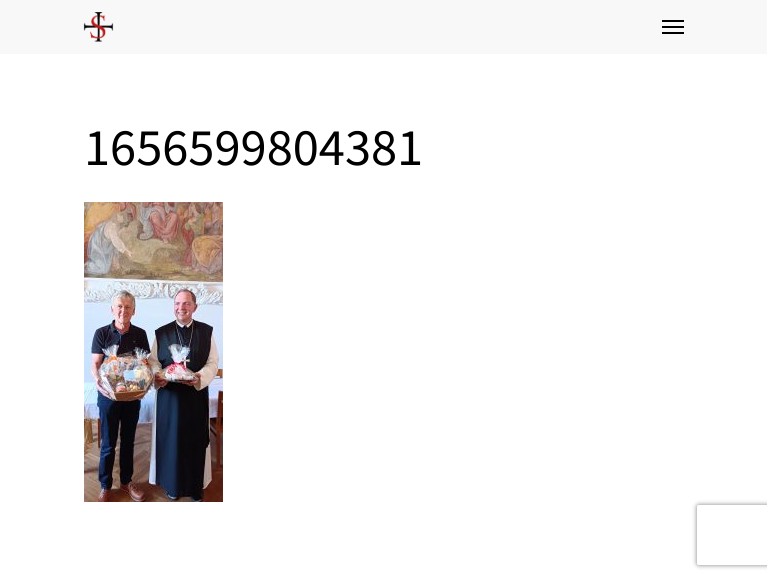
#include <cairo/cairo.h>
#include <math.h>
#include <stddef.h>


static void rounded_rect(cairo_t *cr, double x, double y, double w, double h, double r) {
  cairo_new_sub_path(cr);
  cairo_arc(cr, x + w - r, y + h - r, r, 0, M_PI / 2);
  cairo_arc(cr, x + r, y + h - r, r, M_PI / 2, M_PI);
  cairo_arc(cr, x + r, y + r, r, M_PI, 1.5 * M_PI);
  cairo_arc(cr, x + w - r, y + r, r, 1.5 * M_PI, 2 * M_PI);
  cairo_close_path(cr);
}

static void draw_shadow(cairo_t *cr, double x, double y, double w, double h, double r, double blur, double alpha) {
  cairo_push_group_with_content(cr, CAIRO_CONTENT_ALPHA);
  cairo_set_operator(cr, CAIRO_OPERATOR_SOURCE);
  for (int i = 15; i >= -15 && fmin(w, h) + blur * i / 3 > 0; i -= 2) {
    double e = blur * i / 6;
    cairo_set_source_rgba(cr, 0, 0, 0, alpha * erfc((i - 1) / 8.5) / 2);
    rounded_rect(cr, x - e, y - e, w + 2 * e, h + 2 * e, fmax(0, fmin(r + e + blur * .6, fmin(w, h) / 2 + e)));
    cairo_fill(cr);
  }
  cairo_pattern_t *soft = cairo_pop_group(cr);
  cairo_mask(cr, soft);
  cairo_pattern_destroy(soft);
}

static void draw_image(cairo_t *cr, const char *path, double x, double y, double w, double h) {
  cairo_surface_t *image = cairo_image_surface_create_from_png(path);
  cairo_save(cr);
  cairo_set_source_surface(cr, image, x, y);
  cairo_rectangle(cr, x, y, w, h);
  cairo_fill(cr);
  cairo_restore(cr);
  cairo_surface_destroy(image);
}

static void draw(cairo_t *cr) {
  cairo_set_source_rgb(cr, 1, 1, 1);
  cairo_paint(cr);
  cairo_set_source_rgb(cr, 248 / 255.0, 248 / 255.0, 248 / 255.0);
  cairo_rectangle(cr, 0, 0, 767, 54);
  cairo_fill(cr);
  draw_image(cr, "images/1.png", 83, 12, 31, 30);
  cairo_set_source_rgb(cr, 0, 0, 0);
  cairo_rectangle(cr, 662, 20, 22, 2);
  cairo_fill(cr);
  cairo_rectangle(cr, 662, 32, 22, 2);
  cairo_fill(cr);
  cairo_rectangle(cr, 662, 26, 22, 2);
  cairo_fill(cr);
  draw_image(cr, "images/2.png", 84, 202, 139, 300);
  cairo_save(cr);
  cairo_set_fill_rule(cr, CAIRO_FILL_RULE_EVEN_ODD);
  cairo_new_path(cr);
  cairo_move_to(cr, 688, 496);
  cairo_line_to(cr, 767, 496);
  cairo_line_to(cr, 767, 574);
  cairo_line_to(cr, 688, 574);
  cairo_close_path(cr);
  cairo_move_to(cr, 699, 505);
  cairo_line_to(cr, 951, 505);
  cairo_curve_to(cr, 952, 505, 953, 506, 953, 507);
  cairo_line_to(cr, 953, 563);
  cairo_curve_to(cr, 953, 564, 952, 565, 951, 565);
  cairo_line_to(cr, 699, 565);
  cairo_curve_to(cr, 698, 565, 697, 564, 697, 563);
  cairo_line_to(cr, 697, 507);
  cairo_curve_to(cr, 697, 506, 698, 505, 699, 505);
  cairo_close_path(cr);
  cairo_clip(cr);
  cairo_set_source_rgb(cr, 128 / 255.0, 128 / 255.0, 128 / 255.0);
  draw_shadow(cr, 697, 505, 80, 60, 2, 2.5, 1);
  cairo_restore(cr);
  cairo_select_font_face(cr, "Source Sans 3", CAIRO_FONT_SLANT_NORMAL, CAIRO_FONT_WEIGHT_NORMAL);
  cairo_set_font_size(cr, 52.5);
  cairo_move_to(cr, 84, 165);
  cairo_show_text(cr, "1656599804381");
}

int main(void) {
  cairo_surface_t *surface = cairo_image_surface_create(CAIRO_FORMAT_RGB24, 767, 579);
  cairo_t *cr = cairo_create(surface);
  cairo_font_options_t *options = cairo_font_options_create();
  cairo_font_options_set_hint_metrics(options, CAIRO_HINT_METRICS_OFF);
  cairo_font_options_set_hint_style(options, CAIRO_HINT_STYLE_NONE);
  cairo_set_font_options(cr, options);
  cairo_set_miter_limit(cr, 4);
  draw(cr);
  cairo_surface_write_to_png(surface, "out.png");
  cairo_font_options_destroy(options);
  cairo_destroy(cr);
  cairo_surface_destroy(surface);
  return 0;
}
